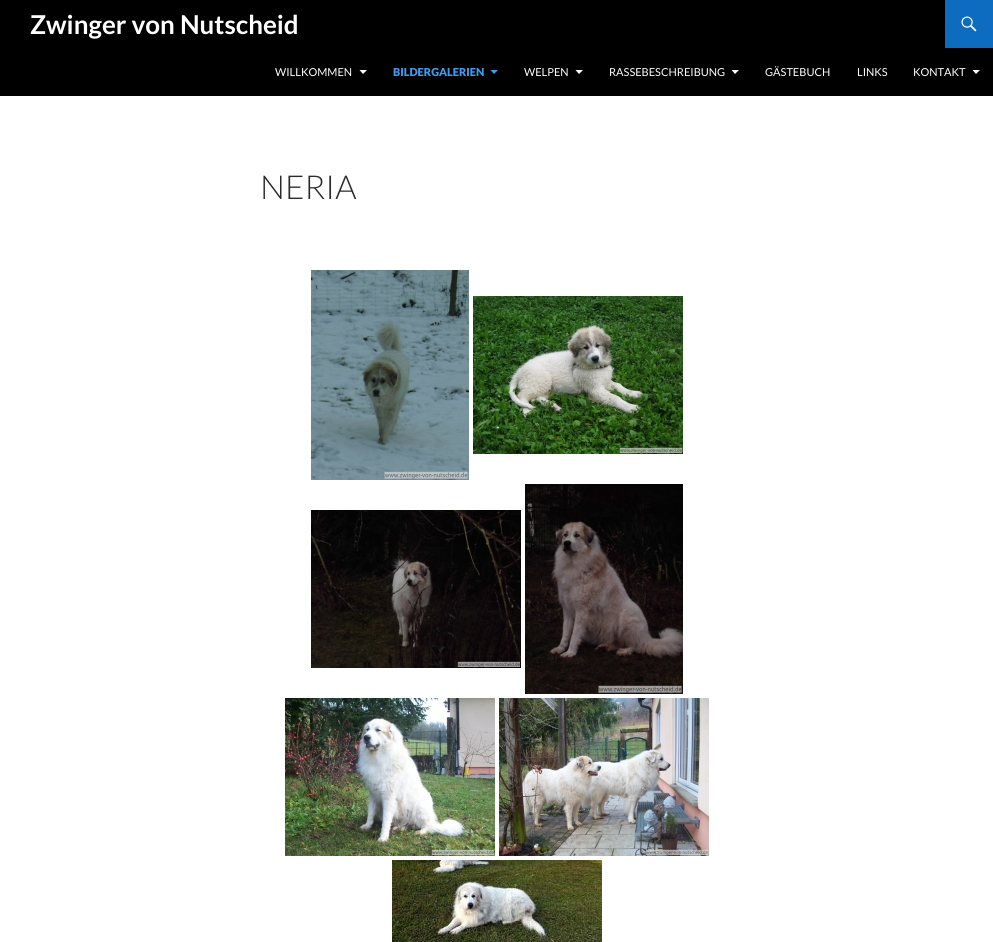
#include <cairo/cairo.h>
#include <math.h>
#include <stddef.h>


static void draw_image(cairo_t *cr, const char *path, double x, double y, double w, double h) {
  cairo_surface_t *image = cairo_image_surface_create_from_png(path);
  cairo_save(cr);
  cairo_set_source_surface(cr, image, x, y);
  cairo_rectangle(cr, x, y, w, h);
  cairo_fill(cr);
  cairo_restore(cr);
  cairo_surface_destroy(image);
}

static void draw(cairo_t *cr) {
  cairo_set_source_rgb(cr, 1, 1, 1);
  cairo_paint(cr);
  cairo_set_source_rgb(cr, 0, 0, 0);
  cairo_rectangle(cr, 0, 0, 993, 96);
  cairo_fill(cr);
  cairo_set_source_rgb(cr, 13 / 255.0, 108 / 255.0, 191 / 255.0);
  cairo_rectangle(cr, 945, 0, 48, 48);
  cairo_fill(cr);
  draw_image(cr, "images/1.png", 961, 16, 16, 16);
  cairo_set_source_rgb(cr, 1, 1, 1);
  cairo_new_path(cr);
  cairo_move_to(cr, 359.5, 70);
  cairo_line_to(cr, 363, 74);
  cairo_line_to(cr, 367, 70);
  cairo_close_path(cr);
  cairo_fill(cr);
  cairo_set_source_rgb(cr, 62 / 255.0, 157 / 255.0, 240 / 255.0);
  cairo_new_path(cr);
  cairo_move_to(cr, 490.5, 70);
  cairo_line_to(cr, 494, 74);
  cairo_line_to(cr, 498, 70);
  cairo_close_path(cr);
  cairo_fill(cr);
  cairo_set_source_rgb(cr, 1, 1, 1);
  cairo_new_path(cr);
  cairo_move_to(cr, 575.5, 70);
  cairo_line_to(cr, 579, 74);
  cairo_line_to(cr, 583, 70);
  cairo_close_path(cr);
  cairo_fill(cr);
  cairo_new_path(cr);
  cairo_move_to(cr, 731.5, 70);
  cairo_line_to(cr, 735, 74);
  cairo_line_to(cr, 739, 70);
  cairo_close_path(cr);
  cairo_fill(cr);
  cairo_new_path(cr);
  cairo_move_to(cr, 972.5, 70);
  cairo_line_to(cr, 976, 74);
  cairo_line_to(cr, 980, 70);
  cairo_close_path(cr);
  cairo_fill(cr);
  draw_image(cr, "images/2.png", 311, 270, 158, 210);
  draw_image(cr, "images/3.png", 473, 296, 210, 158);
  draw_image(cr, "images/4.png", 311, 510, 210, 158);
  draw_image(cr, "images/5.png", 525, 484, 158, 210);
  draw_image(cr, "images/6.png", 285, 698, 210, 158);
  draw_image(cr, "images/7.png", 499, 698, 210, 158);
  draw_image(cr, "images/8.png", 392, 860, 210, 82);
  cairo_select_font_face(cr, "Lato", CAIRO_FONT_SLANT_NORMAL, CAIRO_FONT_WEIGHT_BOLD);
  cairo_set_font_size(cr, 26);
  cairo_move_to(cr, 30, 34);
  cairo_show_text(cr, "Zwinger von Nutscheid");
  cairo_select_font_face(cr, "Lato", CAIRO_FONT_SLANT_NORMAL, CAIRO_FONT_WEIGHT_NORMAL);
  cairo_set_font_size(cr, 11);
  cairo_move_to(cr, 275, 76);
  cairo_show_text(cr, "WILLKOMMEN");
  cairo_select_font_face(cr, "Lato Black", CAIRO_FONT_SLANT_NORMAL, CAIRO_FONT_WEIGHT_NORMAL);
  cairo_set_source_rgb(cr, 62 / 255.0, 157 / 255.0, 240 / 255.0);
  cairo_move_to(cr, 393, 76);
  cairo_show_text(cr, "BILDERGALERIEN");
  cairo_select_font_face(cr, "Lato", CAIRO_FONT_SLANT_NORMAL, CAIRO_FONT_WEIGHT_NORMAL);
  cairo_set_source_rgb(cr, 1, 1, 1);
  cairo_move_to(cr, 524, 76);
  cairo_show_text(cr, "WELPEN");
  cairo_move_to(cr, 609, 76);
  cairo_show_text(cr, "RASSEBESCHREIBUNG");
  cairo_move_to(cr, 765, 76);
  cairo_show_text(cr, "GÄSTEBUCH");
  cairo_move_to(cr, 857, 76);
  cairo_show_text(cr, "LINKS");
  cairo_move_to(cr, 913, 76);
  cairo_show_text(cr, "KONTAKT");
  cairo_select_font_face(cr, "Lato Light", CAIRO_FONT_SLANT_NORMAL, CAIRO_FONT_WEIGHT_NORMAL);
  cairo_set_font_size(cr, 33);
  cairo_set_source_rgb(cr, 43 / 255.0, 43 / 255.0, 43 / 255.0);
  cairo_move_to(cr, 260, 199);
  cairo_show_text(cr, "NERIA");
}

int main(void) {
  cairo_surface_t *surface = cairo_image_surface_create(CAIRO_FORMAT_RGB24, 993, 942);
  cairo_t *cr = cairo_create(surface);
  cairo_font_options_t *options = cairo_font_options_create();
  cairo_font_options_set_hint_metrics(options, CAIRO_HINT_METRICS_OFF);
  cairo_font_options_set_hint_style(options, CAIRO_HINT_STYLE_NONE);
  cairo_set_font_options(cr, options);
  cairo_set_miter_limit(cr, 4);
  draw(cr);
  cairo_surface_write_to_png(surface, "out.png");
  cairo_font_options_destroy(options);
  cairo_destroy(cr);
  cairo_surface_destroy(surface);
  return 0;
}
